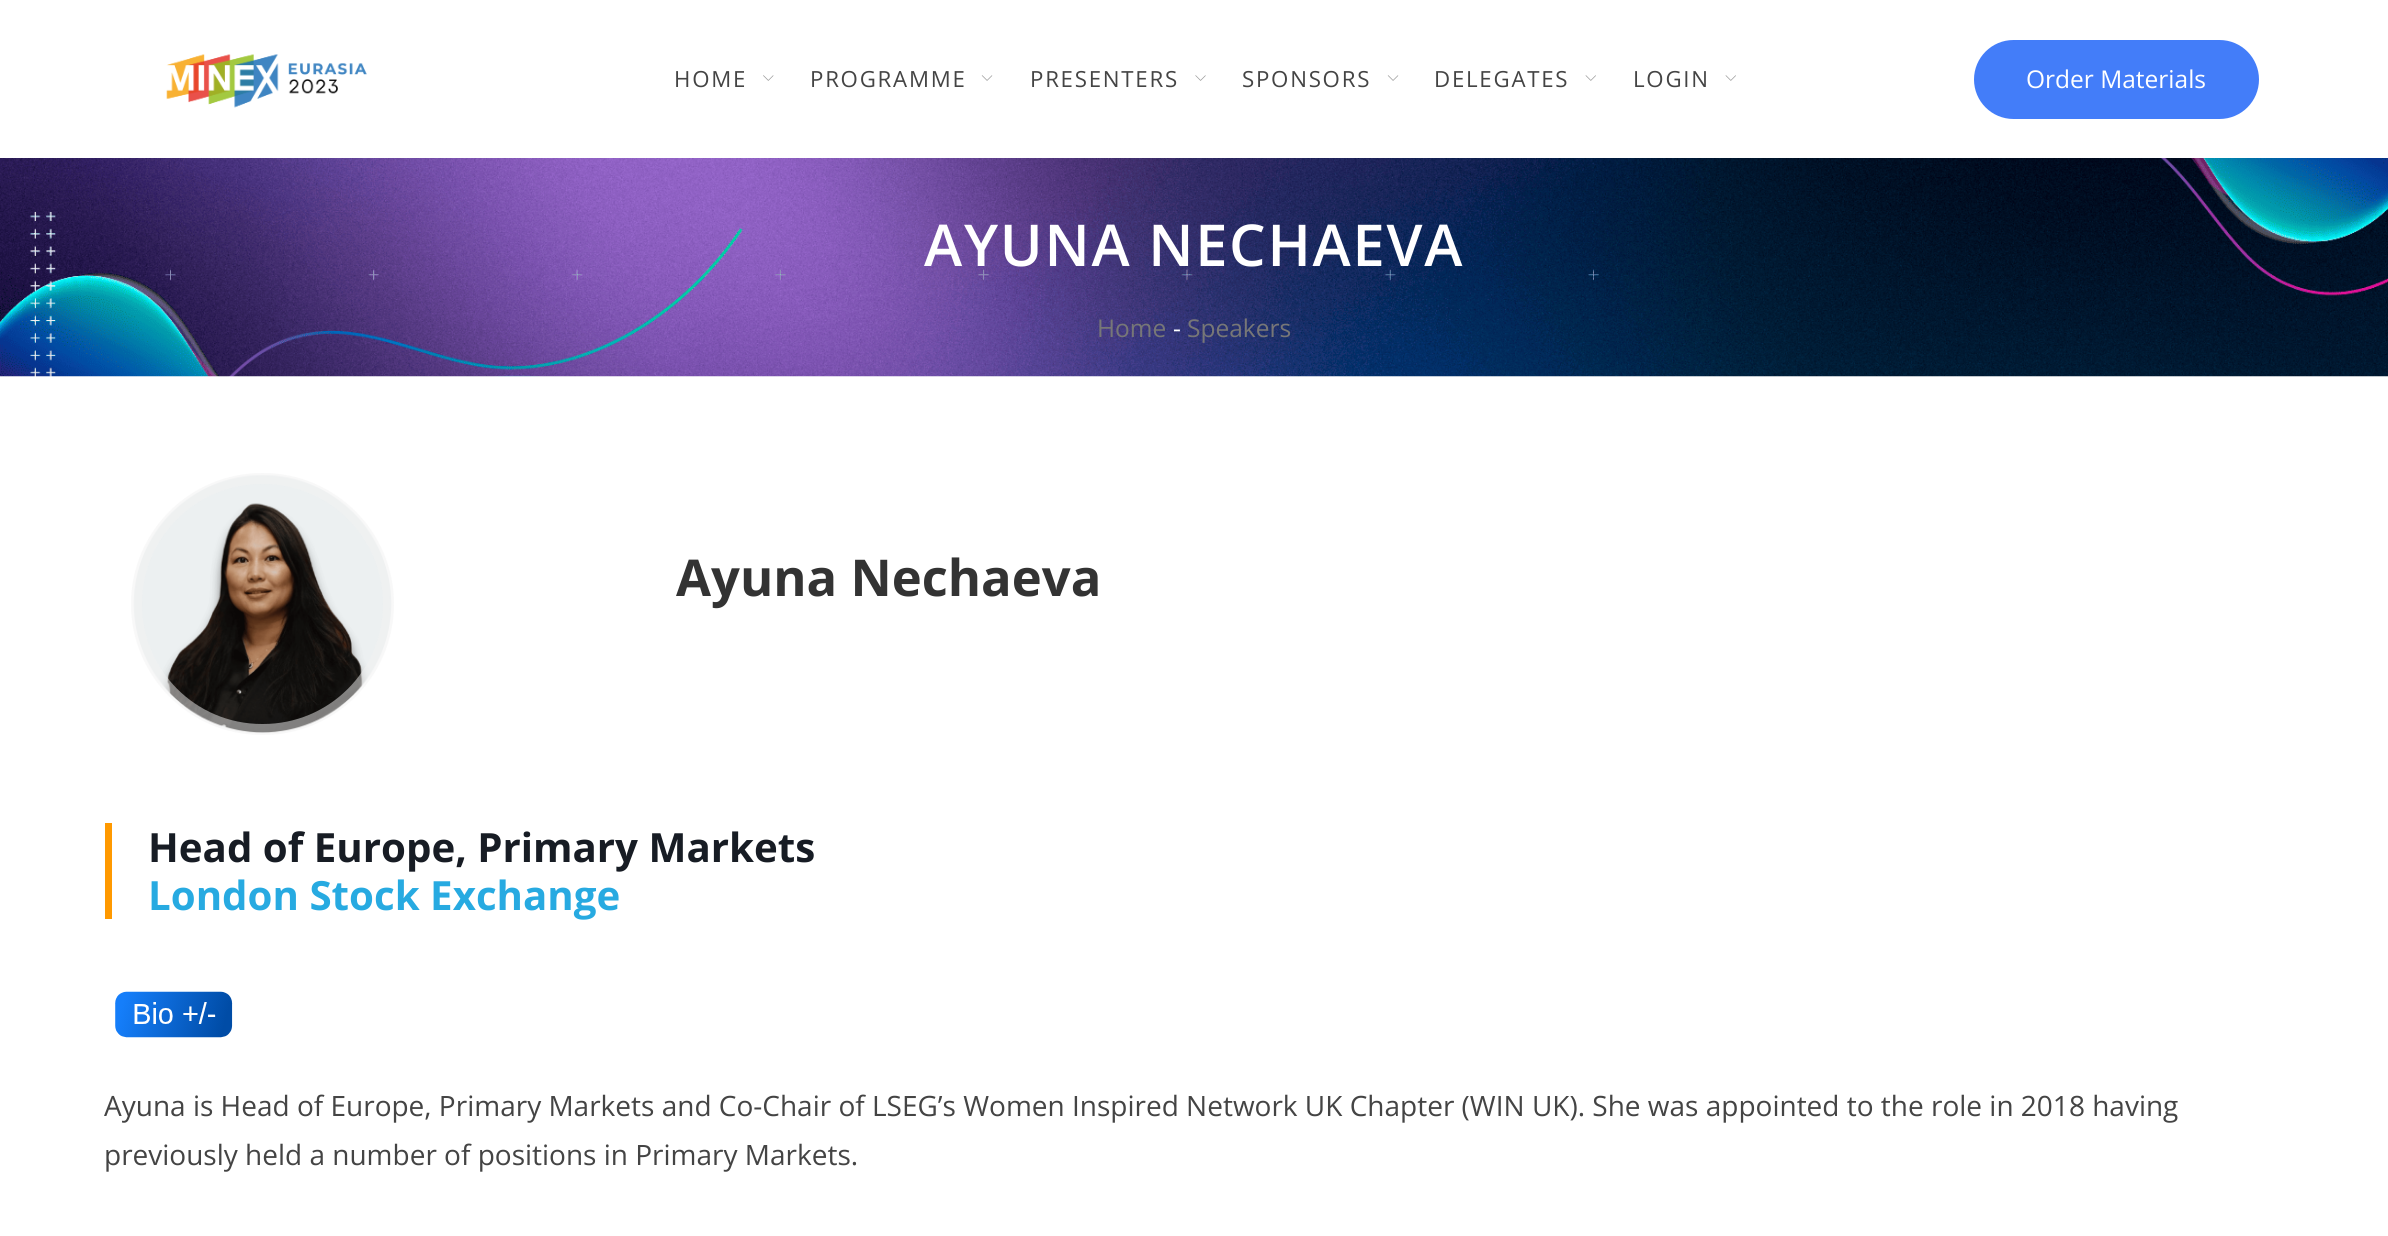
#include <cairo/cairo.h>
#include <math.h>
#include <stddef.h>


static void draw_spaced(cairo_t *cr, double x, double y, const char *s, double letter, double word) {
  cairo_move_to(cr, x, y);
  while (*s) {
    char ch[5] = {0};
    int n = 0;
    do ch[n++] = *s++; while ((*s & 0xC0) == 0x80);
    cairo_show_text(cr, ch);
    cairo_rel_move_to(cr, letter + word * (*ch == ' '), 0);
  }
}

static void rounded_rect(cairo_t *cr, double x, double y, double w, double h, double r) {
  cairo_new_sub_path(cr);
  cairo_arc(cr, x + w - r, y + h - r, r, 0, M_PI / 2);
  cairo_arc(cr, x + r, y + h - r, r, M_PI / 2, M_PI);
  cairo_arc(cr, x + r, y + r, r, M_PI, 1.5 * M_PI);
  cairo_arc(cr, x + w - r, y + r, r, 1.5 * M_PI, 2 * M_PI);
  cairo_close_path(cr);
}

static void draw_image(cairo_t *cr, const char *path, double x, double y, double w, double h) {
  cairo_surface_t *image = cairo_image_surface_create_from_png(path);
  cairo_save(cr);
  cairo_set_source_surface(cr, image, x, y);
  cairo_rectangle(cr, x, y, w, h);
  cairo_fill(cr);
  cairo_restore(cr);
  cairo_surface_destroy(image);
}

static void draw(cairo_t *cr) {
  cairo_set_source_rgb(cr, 1, 1, 1);
  cairo_paint(cr);
  draw_image(cr, "images/1.png", 166, 54, 201, 54);
  draw_image(cr, "images/2.png", 763, 75, 11, 6);
  draw_image(cr, "images/3.png", 981, 75, 12, 6);
  draw_image(cr, "images/4.png", 1195, 75, 11, 6);
  draw_image(cr, "images/3.png", 1387, 75, 12, 6);
  draw_image(cr, "images/5.png", 1585, 75, 11, 6);
  draw_image(cr, "images/5.png", 1725, 75, 11, 6);
  cairo_set_source_rgb(cr, 67 / 255.0, 125 / 255.0, 249 / 255.0);
  rounded_rect(cr, 1974, 40, 285, 79, 39.5);
  cairo_fill(cr);
  draw_image(cr, "images/6.png", 0, 158, 2388, 219);
  draw_image(cr, "images/7.png", 133, 475, 259, 259);
  rounded_rect(cr, 136.5, 478.5, 252, 251, 125.5);
  cairo_set_source_rgba(cr, 242 / 255.0, 242 / 255.0, 242 / 255.0, 0.5);
  cairo_set_line_width(cr, 11);
  cairo_stroke(cr);
  cairo_set_source_rgb(cr, 1, 153 / 255.0, 0);
  cairo_rectangle(cr, 105, 823, 7, 96);
  cairo_fill(cr);
  draw_image(cr, "images/8.png", 115, 991, 118, 47);
  cairo_select_font_face(cr, "Open Sans", CAIRO_FONT_SLANT_NORMAL, CAIRO_FONT_WEIGHT_NORMAL);
  cairo_set_font_size(cr, 22.25);
  cairo_set_source_rgb(cr, 68 / 255.0, 68 / 255.0, 68 / 255.0);
  draw_spaced(cr, 674, 87, "HOME", 1.75, 0);
  draw_spaced(cr, 810, 87, "PROGRAMME", 1.75, 0);
  draw_spaced(cr, 1030, 87, "PRESENTERS", 1.75, 0);
  draw_spaced(cr, 1242, 87, "SPONSORS", 1.75, 0);
  draw_spaced(cr, 1434, 87, "DELEGATES", 1.75, 0);
  draw_spaced(cr, 1633, 87, "LOGIN", 1.75, 0);
  cairo_set_font_size(cr, 24.5);
  cairo_set_source_rgb(cr, 1, 1, 1);
  cairo_move_to(cr, 2026, 88);
  cairo_show_text(cr, "Order Materials");
  cairo_select_font_face(cr, "Open Sans SemiBold", CAIRO_FONT_SLANT_NORMAL, CAIRO_FONT_WEIGHT_NORMAL);
  cairo_set_font_size(cr, 57.75);
  draw_spaced(cr, 924, 266, "AYUNA NECHAEVA", 1.75, 0);
  cairo_select_font_face(cr, "Open Sans", CAIRO_FONT_SLANT_NORMAL, CAIRO_FONT_WEIGHT_NORMAL);
  cairo_set_font_size(cr, 24.5);
  cairo_set_source_rgb(cr, 119 / 255.0, 119 / 255.0, 119 / 255.0);
  cairo_move_to(cr, 1097, 337);
  cairo_show_text(cr, "Home");
  cairo_set_source_rgb(cr, 1, 1, 1);
  cairo_move_to(cr, 1173, 337);
  cairo_show_text(cr, "-");
  cairo_set_source_rgb(cr, 119 / 255.0, 119 / 255.0, 119 / 255.0);
  cairo_move_to(cr, 1187, 337);
  cairo_show_text(cr, "Speakers");
  cairo_select_font_face(cr, "Open Sans", CAIRO_FONT_SLANT_NORMAL, CAIRO_FONT_WEIGHT_BOLD);
  cairo_set_font_size(cr, 50.75);
  cairo_set_source_rgb(cr, 51 / 255.0, 51 / 255.0, 51 / 255.0);
  cairo_move_to(cr, 676, 596);
  cairo_show_text(cr, "Ayuna Nechaeva");
  cairo_set_font_size(cr, 40.25);
  cairo_set_source_rgb(cr, 23 / 255.0, 28 / 255.0, 36 / 255.0);
  cairo_move_to(cr, 148, 862);
  cairo_show_text(cr, "Head of Europe, Primary Markets");
  cairo_set_source_rgb(cr, 39 / 255.0, 170 / 255.0, 225 / 255.0);
  cairo_move_to(cr, 148, 910);
  cairo_show_text(cr, "London Stock Exchange");
  cairo_select_font_face(cr, "Open Sans", CAIRO_FONT_SLANT_NORMAL, CAIRO_FONT_WEIGHT_NORMAL);
  cairo_set_font_size(cr, 28);
  cairo_set_source_rgb(cr, 68 / 255.0, 68 / 255.0, 68 / 255.0);
  cairo_move_to(cr, 104, 1116);
  cairo_show_text(cr, "Ayuna is Head of Europe, Primary Markets and Co-Chair of LSEG’s Women Inspired Network UK Chapter (WIN UK). She was appointed to the role in 2018 having");
  cairo_move_to(cr, 104, 1165);
  cairo_show_text(cr, "previously held a number of positions in Primary Markets.");
}

int main(void) {
  cairo_surface_t *surface = cairo_image_surface_create(CAIRO_FORMAT_RGB24, 2388, 1236);
  cairo_t *cr = cairo_create(surface);
  cairo_font_options_t *options = cairo_font_options_create();
  cairo_font_options_set_hint_metrics(options, CAIRO_HINT_METRICS_OFF);
  cairo_font_options_set_hint_style(options, CAIRO_HINT_STYLE_NONE);
  cairo_set_font_options(cr, options);
  cairo_set_miter_limit(cr, 4);
  draw(cr);
  cairo_surface_write_to_png(surface, "out.png");
  cairo_font_options_destroy(options);
  cairo_destroy(cr);
  cairo_surface_destroy(surface);
  return 0;
}
